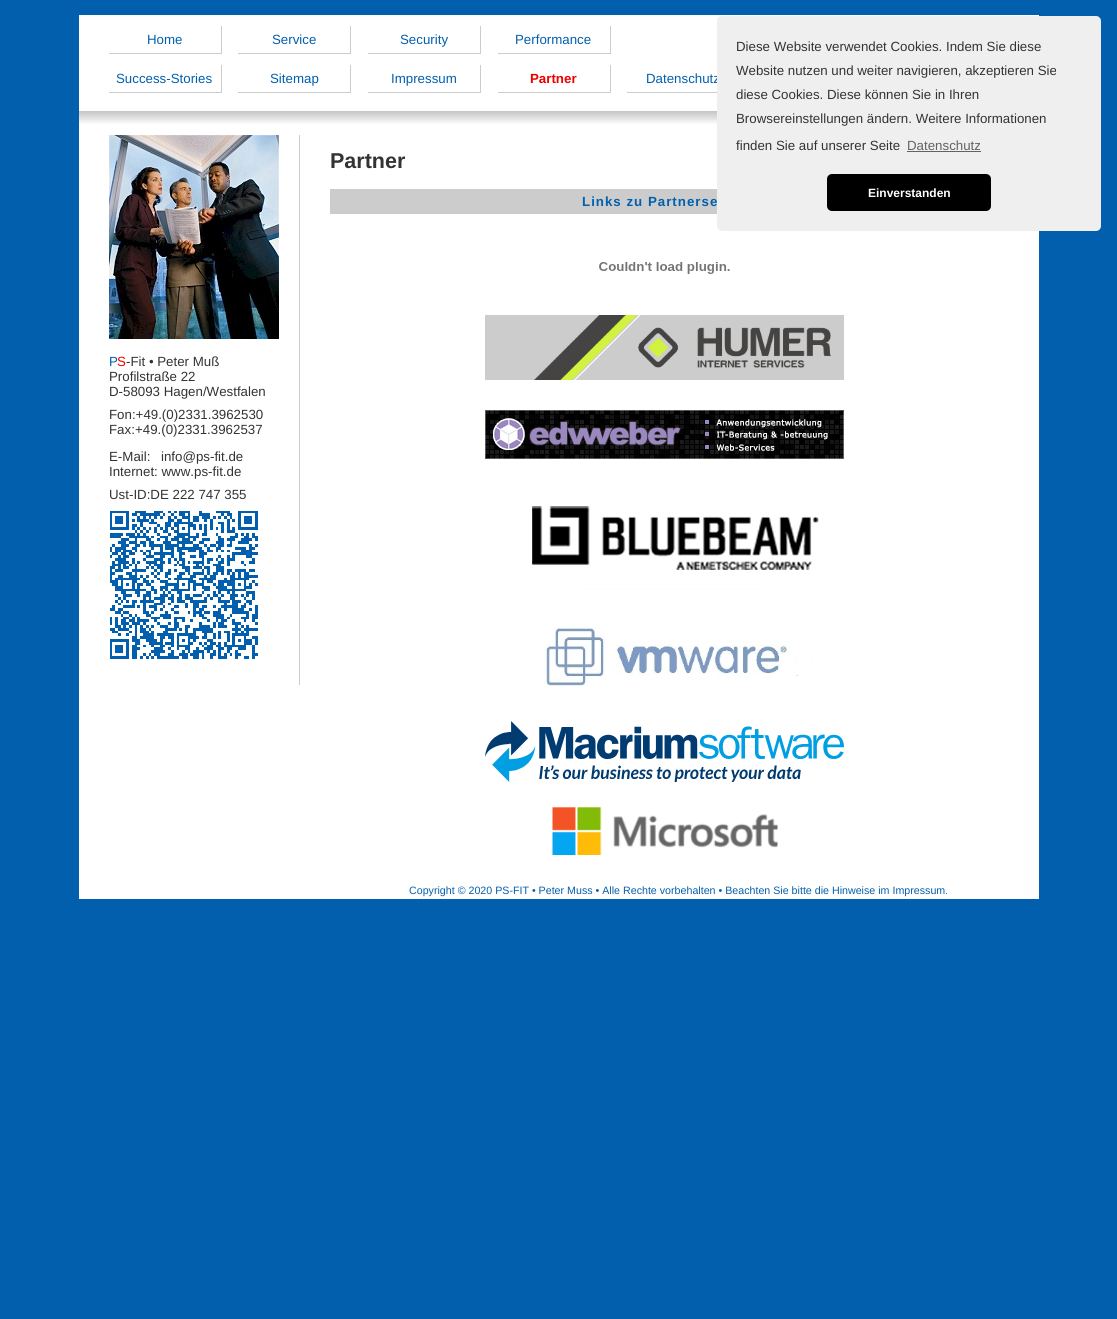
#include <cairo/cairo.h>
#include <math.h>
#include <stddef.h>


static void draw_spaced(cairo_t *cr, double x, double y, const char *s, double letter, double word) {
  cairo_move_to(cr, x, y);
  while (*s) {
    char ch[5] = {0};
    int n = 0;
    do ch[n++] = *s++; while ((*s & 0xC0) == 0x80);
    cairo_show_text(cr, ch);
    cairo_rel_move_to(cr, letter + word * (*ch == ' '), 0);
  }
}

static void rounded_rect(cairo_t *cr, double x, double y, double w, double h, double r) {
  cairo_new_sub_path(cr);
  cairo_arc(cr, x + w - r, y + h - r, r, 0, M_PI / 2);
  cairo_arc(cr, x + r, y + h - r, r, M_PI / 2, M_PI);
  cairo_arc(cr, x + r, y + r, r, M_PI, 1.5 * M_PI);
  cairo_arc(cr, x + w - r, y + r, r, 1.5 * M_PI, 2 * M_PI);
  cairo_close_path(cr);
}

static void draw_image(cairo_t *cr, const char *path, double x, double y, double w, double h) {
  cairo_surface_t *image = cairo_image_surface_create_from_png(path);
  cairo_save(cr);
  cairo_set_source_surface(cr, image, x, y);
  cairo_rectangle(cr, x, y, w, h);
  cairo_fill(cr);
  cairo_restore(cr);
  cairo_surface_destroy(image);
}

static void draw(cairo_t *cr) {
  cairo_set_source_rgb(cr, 2 / 255.0, 95 / 255.0, 173 / 255.0);
  cairo_paint(cr);
  cairo_set_source_rgb(cr, 1, 1, 1);
  cairo_rectangle(cr, 79, 15, 960, 884);
  cairo_fill(cr);
  draw_image(cr, "images/1.png", 79, 111, 638, 13);
  cairo_set_source_rgb(cr, 204 / 255.0, 204 / 255.0, 204 / 255.0);
  cairo_rectangle(cr, 221, 26, 1, 28);
  cairo_fill(cr);
  cairo_rectangle(cr, 109, 53, 113, 1);
  cairo_fill(cr);
  cairo_rectangle(cr, 350, 26, 1, 28);
  cairo_fill(cr);
  cairo_rectangle(cr, 238, 53, 113, 1);
  cairo_fill(cr);
  cairo_rectangle(cr, 480, 26, 1, 28);
  cairo_fill(cr);
  cairo_rectangle(cr, 368, 53, 113, 1);
  cairo_fill(cr);
  cairo_rectangle(cr, 610, 26, 1, 28);
  cairo_fill(cr);
  cairo_rectangle(cr, 498, 53, 113, 1);
  cairo_fill(cr);
  cairo_rectangle(cr, 221, 65, 1, 28);
  cairo_fill(cr);
  cairo_rectangle(cr, 109, 92, 113, 1);
  cairo_fill(cr);
  cairo_rectangle(cr, 350, 65, 1, 28);
  cairo_fill(cr);
  cairo_rectangle(cr, 238, 92, 113, 1);
  cairo_fill(cr);
  cairo_rectangle(cr, 480, 65, 1, 28);
  cairo_fill(cr);
  cairo_rectangle(cr, 368, 92, 113, 1);
  cairo_fill(cr);
  cairo_rectangle(cr, 610, 65, 1, 28);
  cairo_fill(cr);
  cairo_rectangle(cr, 498, 92, 113, 1);
  cairo_fill(cr);
  cairo_rectangle(cr, 627, 92, 90, 1);
  cairo_fill(cr);
  cairo_rectangle(cr, 330, 189, 387, 25);
  cairo_fill(cr);
  draw_image(cr, "images/2.png", 599, 262, 131, 12);
  draw_image(cr, "images/3.png", 485, 315, 359, 65);
  draw_image(cr, "images/4.png", 485, 410, 359, 49);
  draw_image(cr, "images/5.png", 532, 506, 287, 84);
  draw_image(cr, "images/6.png", 543, 627, 270, 60);
  draw_image(cr, "images/7.png", 485, 721, 359, 61);
  draw_image(cr, "images/8.png", 552, 807, 226, 48);
  cairo_rectangle(cr, 299, 135, 1, 550);
  cairo_fill(cr);
  draw_image(cr, "images/9.png", 109, 135, 170, 204);
  draw_image(cr, "images/10.png", 110, 511, 148, 148);
  cairo_select_font_face(cr, "Liberation Sans", CAIRO_FONT_SLANT_NORMAL, CAIRO_FONT_WEIGHT_NORMAL);
  cairo_set_font_size(cr, 13.3);
  cairo_set_source_rgb(cr, 2 / 255.0, 95 / 255.0, 173 / 255.0);
  cairo_move_to(cr, 147, 44);
  cairo_show_text(cr, "Home");
  cairo_move_to(cr, 272, 44);
  cairo_show_text(cr, "Service");
  cairo_move_to(cr, 400, 44);
  cairo_show_text(cr, "Security");
  cairo_move_to(cr, 515, 44);
  cairo_show_text(cr, "Performance");
  cairo_move_to(cr, 116, 83);
  cairo_show_text(cr, "Success-Stories");
  cairo_move_to(cr, 270, 83);
  cairo_show_text(cr, "Sitemap");
  cairo_move_to(cr, 391, 83);
  cairo_show_text(cr, "Impressum");
  cairo_select_font_face(cr, "Liberation Sans", CAIRO_FONT_SLANT_NORMAL, CAIRO_FONT_WEIGHT_BOLD);
  cairo_set_source_rgb(cr, 236 / 255.0, 0, 0);
  cairo_move_to(cr, 530, 83);
  cairo_show_text(cr, "Partner");
  cairo_select_font_face(cr, "Liberation Sans", CAIRO_FONT_SLANT_NORMAL, CAIRO_FONT_WEIGHT_NORMAL);
  cairo_set_source_rgb(cr, 2 / 255.0, 95 / 255.0, 173 / 255.0);
  cairo_move_to(cr, 646, 83);
  cairo_show_text(cr, "Datenschutz");
  cairo_select_font_face(cr, "Liberation Sans", CAIRO_FONT_SLANT_NORMAL, CAIRO_FONT_WEIGHT_BOLD);
  cairo_set_font_size(cr, 21.5);
  cairo_set_source_rgb(cr, 51 / 255.0, 51 / 255.0, 51 / 255.0);
  cairo_move_to(cr, 330, 168);
  cairo_show_text(cr, "Partner");
  cairo_set_font_size(cr, 13.3);
  cairo_set_source_rgb(cr, 2 / 255.0, 95 / 255.0, 173 / 255.0);
  draw_spaced(cr, 582, 206, "Links zu Partnerse", 1, 0);
  cairo_select_font_face(cr, "Liberation Sans", CAIRO_FONT_SLANT_NORMAL, CAIRO_FONT_WEIGHT_NORMAL);
  cairo_move_to(cr, 109, 366);
  cairo_show_text(cr, "P");
  cairo_set_source_rgb(cr, 236 / 255.0, 0, 0);
  cairo_move_to(cr, 117, 366);
  cairo_show_text(cr, "S");
  cairo_set_source_rgb(cr, 51 / 255.0, 51 / 255.0, 51 / 255.0);
  cairo_move_to(cr, 126, 366);
  cairo_show_text(cr, "-Fit • Peter Muß");
  cairo_move_to(cr, 109, 381);
  cairo_show_text(cr, "Profilstraße 22");
  cairo_move_to(cr, 109, 396);
  cairo_show_text(cr, "D-58093 Hagen/Westfalen");
  cairo_move_to(cr, 109, 419);
  cairo_show_text(cr, "Fon:+49.(0)2331.3962530");
  cairo_move_to(cr, 109, 434);
  cairo_show_text(cr, "Fax:");
  cairo_move_to(cr, 135, 434);
  cairo_show_text(cr, "+49.(0)2331.3962537");
  cairo_move_to(cr, 109, 461);
  cairo_show_text(cr, "E-Mail:");
  cairo_move_to(cr, 161, 461);
  cairo_show_text(cr, "info@ps-fit.de");
  cairo_move_to(cr, 109, 476);
  cairo_show_text(cr, "Internet: www.ps-fit.de");
  cairo_move_to(cr, 109, 499);
  cairo_show_text(cr, "Ust-ID:DE 222 747 355");
  cairo_set_font_size(cr, 10.67);
  cairo_set_source_rgb(cr, 2 / 255.0, 95 / 255.0, 173 / 255.0);
  cairo_move_to(cr, 409, 894);
  cairo_show_text(cr, "Copyright © 2020 PS-FIT • Peter Muss • Alle Rechte vorbehalten • Beachten Sie bitte die Hinweise im Impressum.");
  cairo_set_source_rgb(cr, 239 / 255.0, 239 / 255.0, 239 / 255.0);
  rounded_rect(cr, 717, 16, 384, 215, 5);
  cairo_fill(cr);
  cairo_set_font_size(cr, 13.3);
  cairo_set_source_rgb(cr, 51 / 255.0, 51 / 255.0, 51 / 255.0);
  cairo_move_to(cr, 736, 51);
  cairo_show_text(cr, "Diese Website verwendet Cookies. Indem Sie diese");
  cairo_move_to(cr, 736, 75);
  cairo_show_text(cr, "Website nutzen und weiter navigieren, akzeptieren Sie");
  cairo_move_to(cr, 736, 99);
  cairo_show_text(cr, "diese Cookies. Diese können Sie in Ihren");
  cairo_move_to(cr, 736, 123);
  cairo_show_text(cr, "Browsereinstellungen ändern. Weitere Informationen");
  cairo_move_to(cr, 736, 150);
  cairo_show_text(cr, "finden Sie auf unserer Seite");
  cairo_set_source_rgb(cr, 99 / 255.0, 99 / 255.0, 99 / 255.0);
  cairo_move_to(cr, 907, 150);
  cairo_show_text(cr, "Datenschutz");
  cairo_rectangle(cr, 907, 151, 74, 1);
  cairo_fill(cr);
  cairo_set_source_rgb(cr, 0, 0, 0);
  rounded_rect(cr, 827, 174, 164, 37, 5);
  cairo_fill(cr);
  cairo_select_font_face(cr, "Liberation Sans", CAIRO_FONT_SLANT_NORMAL, CAIRO_FONT_WEIGHT_BOLD);
  cairo_set_font_size(cr, 12);
  cairo_set_source_rgb(cr, 1, 1, 1);
  cairo_move_to(cr, 868, 197);
  cairo_show_text(cr, "Einverstanden");
}

int main(void) {
  cairo_surface_t *surface = cairo_image_surface_create(CAIRO_FORMAT_RGB24, 1117, 1319);
  cairo_t *cr = cairo_create(surface);
  cairo_font_options_t *options = cairo_font_options_create();
  cairo_font_options_set_hint_metrics(options, CAIRO_HINT_METRICS_OFF);
  cairo_font_options_set_hint_style(options, CAIRO_HINT_STYLE_NONE);
  cairo_set_font_options(cr, options);
  cairo_set_miter_limit(cr, 4);
  draw(cr);
  cairo_surface_write_to_png(surface, "out.png");
  cairo_font_options_destroy(options);
  cairo_destroy(cr);
  cairo_surface_destroy(surface);
  return 0;
}
